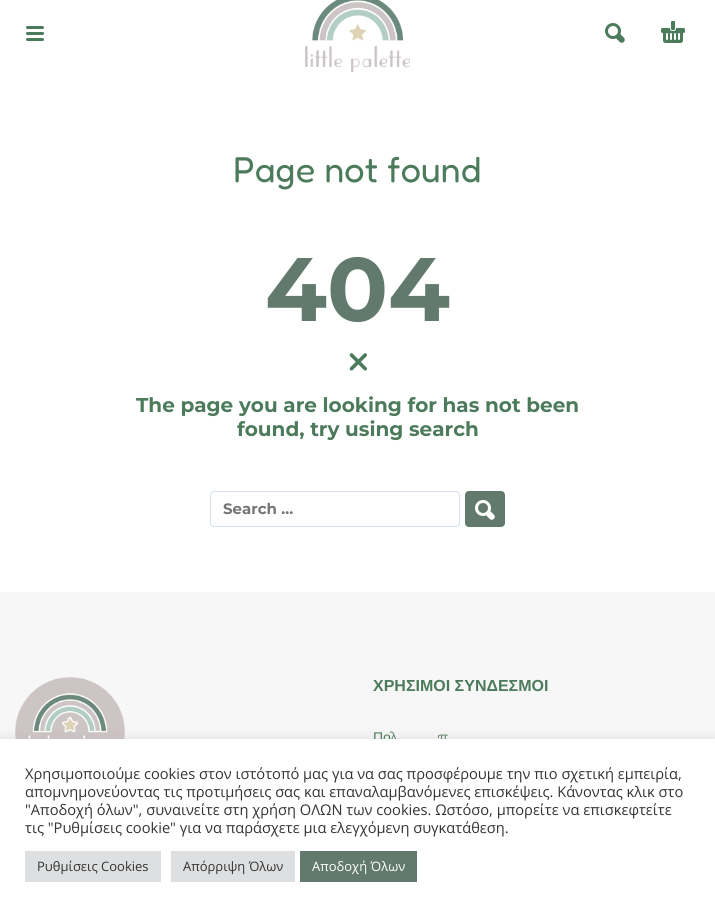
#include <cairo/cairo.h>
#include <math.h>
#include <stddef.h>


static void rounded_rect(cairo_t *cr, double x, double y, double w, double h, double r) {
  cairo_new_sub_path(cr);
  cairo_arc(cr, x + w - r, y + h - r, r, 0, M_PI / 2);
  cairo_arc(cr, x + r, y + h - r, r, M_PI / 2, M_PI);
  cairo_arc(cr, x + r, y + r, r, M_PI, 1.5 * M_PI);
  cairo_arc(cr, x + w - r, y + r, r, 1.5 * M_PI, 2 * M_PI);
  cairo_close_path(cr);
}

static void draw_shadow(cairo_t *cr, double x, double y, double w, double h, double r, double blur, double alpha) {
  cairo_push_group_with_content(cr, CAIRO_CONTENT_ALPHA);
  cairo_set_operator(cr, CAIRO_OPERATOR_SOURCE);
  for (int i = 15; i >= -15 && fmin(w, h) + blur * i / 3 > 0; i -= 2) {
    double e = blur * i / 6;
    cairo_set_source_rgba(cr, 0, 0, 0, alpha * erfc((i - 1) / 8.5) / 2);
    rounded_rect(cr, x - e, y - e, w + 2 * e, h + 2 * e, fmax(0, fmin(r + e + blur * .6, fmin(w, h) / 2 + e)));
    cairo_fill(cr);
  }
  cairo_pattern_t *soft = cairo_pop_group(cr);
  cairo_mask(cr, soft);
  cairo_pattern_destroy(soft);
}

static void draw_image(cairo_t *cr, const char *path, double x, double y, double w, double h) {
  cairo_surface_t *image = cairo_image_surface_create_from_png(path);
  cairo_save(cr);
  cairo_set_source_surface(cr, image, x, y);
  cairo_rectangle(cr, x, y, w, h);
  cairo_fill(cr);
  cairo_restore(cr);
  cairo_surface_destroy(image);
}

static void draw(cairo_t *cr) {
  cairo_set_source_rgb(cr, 1, 1, 1);
  cairo_paint(cr);
  draw_image(cr, "images/1.png", 26, 26, 18, 15);
  draw_image(cr, "images/2.png", 305, 0, 105, 72);
  draw_image(cr, "images/3.png", 605, 23, 20, 20);
  draw_image(cr, "images/4.png", 661, 21, 24, 22);
  draw_image(cr, "images/5.png", 349, 353, 18, 18);
  rounded_rect(cr, 210.5, 491.5, 249, 35, 3.5);
  cairo_set_source_rgb(cr, 213 / 255.0, 224 / 255.0, 236 / 255.0);
  cairo_set_line_width(cr, 1);
  cairo_stroke(cr);
  cairo_set_source_rgb(cr, 98 / 255.0, 122 / 255.0, 110 / 255.0);
  rounded_rect(cr, 465, 491, 40, 36, 4);
  cairo_fill(cr);
  draw_image(cr, "images/6.png", 475, 500, 20, 20);
  cairo_set_source_rgb(cr, 247 / 255.0, 247 / 255.0, 247 / 255.0);
  cairo_rectangle(cr, 0, 592, 715, 147);
  cairo_fill(cr);
  draw_image(cr, "images/7.png", 15, 677, 110, 62);
  cairo_set_source_rgb(cr, 172 / 255.0, 171 / 255.0, 171 / 255.0);
  draw_shadow(cr, 0, 738, 715, 173, 0, 5, 0.3);
  cairo_select_font_face(cr, "Fredoka", CAIRO_FONT_SLANT_NORMAL, CAIRO_FONT_WEIGHT_NORMAL);
  cairo_set_font_size(cr, 36);
  cairo_set_source_rgb(cr, 76 / 255.0, 123 / 255.0, 91 / 255.0);
  cairo_move_to(cr, 233, 182);
  cairo_show_text(cr, "Page not found");
  cairo_select_font_face(cr, "Montserrat", CAIRO_FONT_SLANT_NORMAL, CAIRO_FONT_WEIGHT_BOLD);
  cairo_set_font_size(cr, 90);
  cairo_set_source_rgb(cr, 98 / 255.0, 122 / 255.0, 110 / 255.0);
  cairo_move_to(cr, 265, 321);
  cairo_show_text(cr, "404");
  cairo_set_font_size(cr, 20);
  cairo_set_source_rgb(cr, 76 / 255.0, 123 / 255.0, 91 / 255.0);
  cairo_move_to(cr, 136, 412);
  cairo_show_text(cr, "The page you are looking for has not been");
  cairo_move_to(cr, 237, 436);
  cairo_show_text(cr, "found, try using search");
  cairo_set_font_size(cr, 15);
  cairo_set_source_rgb(cr, 117 / 255.0, 117 / 255.0, 117 / 255.0);
  cairo_move_to(cr, 223, 514);
  cairo_show_text(cr, "Search …");
  cairo_select_font_face(cr, "Liberation Sans", CAIRO_FONT_SLANT_NORMAL, CAIRO_FONT_WEIGHT_BOLD);
  cairo_set_font_size(cr, 16);
  cairo_set_source_rgb(cr, 76 / 255.0, 123 / 255.0, 91 / 255.0);
  cairo_move_to(cr, 373, 691);
  cairo_show_text(cr, "ΧΡΗΣΙΜΟΙ ΣΥΝΔΕΣΜΟΙ");
  cairo_select_font_face(cr, "Liberation Sans", CAIRO_FONT_SLANT_NORMAL, CAIRO_FONT_WEIGHT_NORMAL);
  cairo_set_font_size(cr, 14);
  cairo_move_to(cr, 373, 742);
  cairo_show_text(cr, "Πο");
  cairo_select_font_face(cr, "Montserrat", CAIRO_FONT_SLANT_NORMAL, CAIRO_FONT_WEIGHT_NORMAL);
  cairo_move_to(cr, 390, 742);
  cairo_show_text(cr, "λ");
  cairo_move_to(cr, 438, 742);
  cairo_show_text(cr, "π");
  cairo_set_source_rgb(cr, 1, 1, 1);
  cairo_rectangle(cr, 0, 739, 715, 173);
  cairo_fill(cr);
  cairo_select_font_face(cr, "Open Sans", CAIRO_FONT_SLANT_NORMAL, CAIRO_FONT_WEIGHT_NORMAL);
  cairo_set_font_size(cr, 14.65);
  cairo_set_source_rgb(cr, 51 / 255.0, 51 / 255.0, 51 / 255.0);
  cairo_move_to(cr, 25, 779);
  cairo_show_text(cr, "Χρησιμοποιούμε cookies στον ιστότοπό μας για να σας προσφέρουμε την πιο σχετική εμπειρία,");
  cairo_move_to(cr, 25, 797);
  cairo_show_text(cr, "απομνημονεύοντας τις προτιμήσεις σας και επαναλαμβανόμενες επισκέψεις. Κάνοντας κλικ στο");
  cairo_move_to(cr, 25, 815);
  cairo_show_text(cr, "\"Αποδοχή όλων\", συναινείτε στη χρήση ΟΛΩΝ των cookies. Ωστόσο, μπορείτε να επισκεφτείτε");
  cairo_move_to(cr, 25, 833);
  cairo_show_text(cr, "τις \"Ρυθμίσεις cookie\" για να παράσχετε μια ελεγχόμενη συγκατάθεση.");
  cairo_set_source_rgb(cr, 222 / 255.0, 223 / 255.0, 224 / 255.0);
  cairo_rectangle(cr, 25, 851, 136, 31);
  cairo_fill(cr);
  cairo_set_font_size(cr, 13);
  cairo_set_source_rgb(cr, 51 / 255.0, 51 / 255.0, 51 / 255.0);
  cairo_move_to(cr, 37, 871);
  cairo_show_text(cr, "Ρυθμίσεις Cookies");
  cairo_set_source_rgb(cr, 222 / 255.0, 223 / 255.0, 224 / 255.0);
  cairo_rectangle(cr, 171, 851, 124, 31);
  cairo_fill(cr);
  cairo_set_source_rgb(cr, 51 / 255.0, 51 / 255.0, 51 / 255.0);
  cairo_move_to(cr, 183, 871);
  cairo_show_text(cr, "Απόρριψη Όλων");
  cairo_set_source_rgb(cr, 98 / 255.0, 122 / 255.0, 110 / 255.0);
  cairo_rectangle(cr, 300, 851, 117, 31);
  cairo_fill(cr);
  cairo_set_source_rgb(cr, 1, 1, 1);
  cairo_move_to(cr, 312, 871);
  cairo_show_text(cr, "Αποδοχή Όλων");
}

int main(void) {
  cairo_surface_t *surface = cairo_image_surface_create(CAIRO_FORMAT_RGB24, 715, 912);
  cairo_t *cr = cairo_create(surface);
  cairo_font_options_t *options = cairo_font_options_create();
  cairo_font_options_set_hint_metrics(options, CAIRO_HINT_METRICS_OFF);
  cairo_font_options_set_hint_style(options, CAIRO_HINT_STYLE_NONE);
  cairo_set_font_options(cr, options);
  cairo_set_miter_limit(cr, 4);
  draw(cr);
  cairo_surface_write_to_png(surface, "out.png");
  cairo_font_options_destroy(options);
  cairo_destroy(cr);
  cairo_surface_destroy(surface);
  return 0;
}
